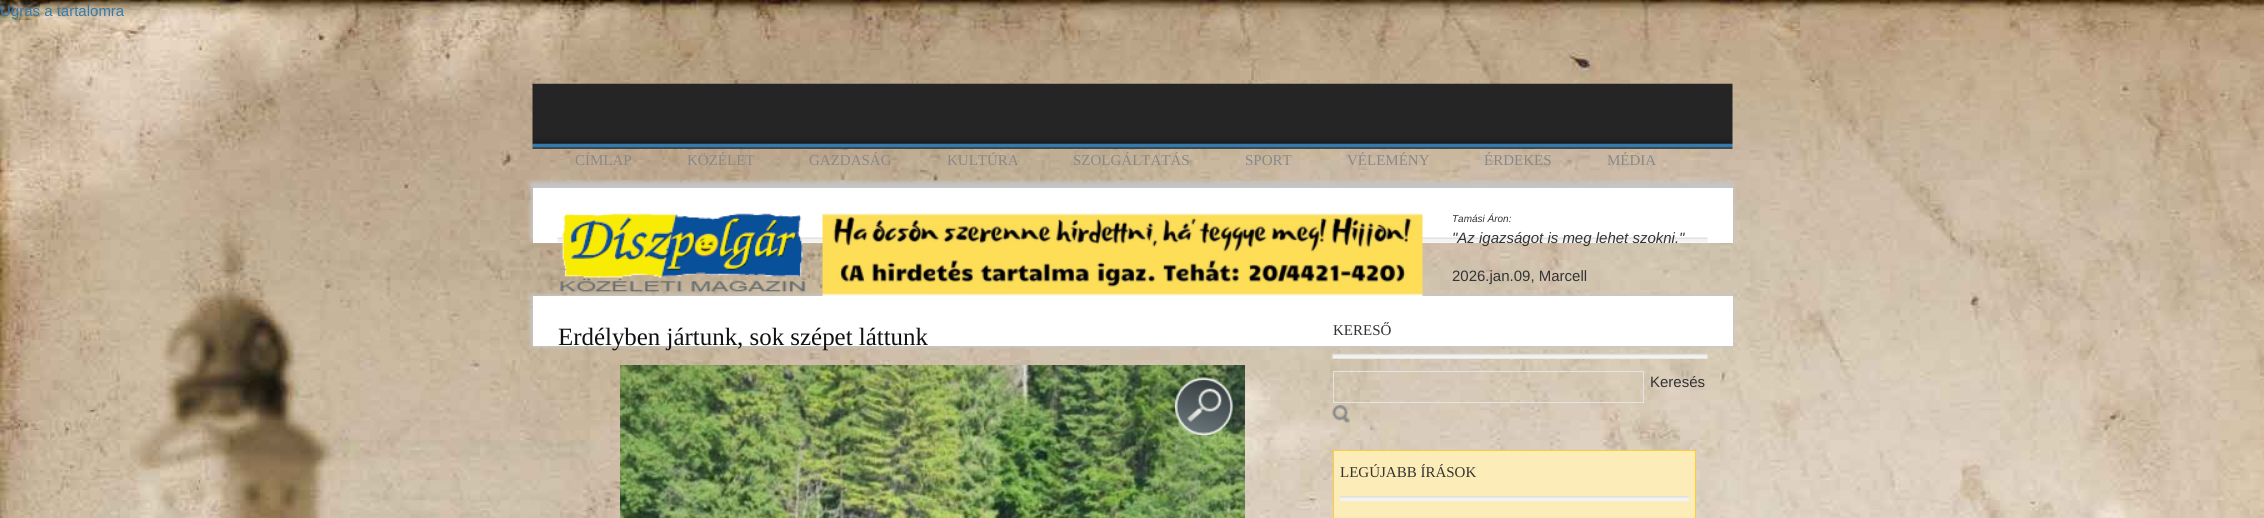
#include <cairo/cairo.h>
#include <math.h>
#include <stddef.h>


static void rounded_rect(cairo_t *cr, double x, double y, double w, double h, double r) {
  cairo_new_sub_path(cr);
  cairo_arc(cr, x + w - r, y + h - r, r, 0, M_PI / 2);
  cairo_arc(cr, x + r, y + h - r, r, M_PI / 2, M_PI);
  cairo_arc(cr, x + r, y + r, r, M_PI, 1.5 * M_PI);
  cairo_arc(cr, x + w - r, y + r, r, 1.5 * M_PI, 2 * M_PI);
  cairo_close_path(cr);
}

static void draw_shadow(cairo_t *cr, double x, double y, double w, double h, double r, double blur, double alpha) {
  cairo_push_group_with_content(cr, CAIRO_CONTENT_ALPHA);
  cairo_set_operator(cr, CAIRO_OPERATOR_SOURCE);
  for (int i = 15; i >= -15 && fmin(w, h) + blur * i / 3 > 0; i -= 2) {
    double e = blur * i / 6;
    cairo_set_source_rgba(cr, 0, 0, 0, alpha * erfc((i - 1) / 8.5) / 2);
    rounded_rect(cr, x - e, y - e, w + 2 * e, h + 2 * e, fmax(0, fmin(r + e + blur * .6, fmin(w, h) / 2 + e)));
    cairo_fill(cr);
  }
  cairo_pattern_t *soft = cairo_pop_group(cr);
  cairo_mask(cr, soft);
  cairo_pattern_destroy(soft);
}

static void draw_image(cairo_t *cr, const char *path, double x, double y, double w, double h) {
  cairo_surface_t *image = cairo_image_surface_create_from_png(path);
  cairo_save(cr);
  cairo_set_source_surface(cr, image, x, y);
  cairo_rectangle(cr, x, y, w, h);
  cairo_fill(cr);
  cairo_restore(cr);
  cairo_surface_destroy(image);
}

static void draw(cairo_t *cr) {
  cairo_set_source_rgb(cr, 1, 1, 1);
  cairo_paint(cr);
  draw_image(cr, "images/1.png", 0, 0, 2264, 518);
  draw_image(cr, "images/2.png", 532, 83, 1201, 66);
  cairo_set_source_rgb(cr, 197 / 255.0, 197 / 255.0, 197 / 255.0);
  draw_shadow(cr, 531, 183, 1200, 55, 0, 2.5, 1);
  draw_shadow(cr, 533, 183, 1200, 55, 0, 2.5, 1);
  cairo_set_source_rgb(cr, 1, 1, 1);
  cairo_rectangle(cr, 533, 188, 1200, 55);
  cairo_fill(cr);
  draw_image(cr, "images/3.png", 557, 237, 1151, 6);
  cairo_set_source_rgb(cr, 197 / 255.0, 197 / 255.0, 197 / 255.0);
  draw_shadow(cr, 531, 296, 1200, 50, 0, 2.5, 1);
  draw_shadow(cr, 533, 296, 1200, 50, 0, 2.5, 1);
  draw_image(cr, "images/4.png", 560, 213, 246, 79);
  draw_image(cr, "images/5.png", 822, 213, 601, 83);
  cairo_set_source_rgb(cr, 1, 1, 1);
  cairo_rectangle(cr, 533, 296, 1200, 50);
  cairo_fill(cr);
  draw_image(cr, "images/6.png", 620, 365, 625, 153);
  draw_image(cr, "images/7.png", 1175, 377, 58, 58);
  draw_image(cr, "images/8.png", 1332, 353, 376, 6);
  cairo_rectangle(cr, 1333.5, 371.5, 310, 31);
  cairo_set_source_rgb(cr, 228 / 255.0, 228 / 255.0, 228 / 255.0);
  cairo_set_line_width(cr, 1);
  cairo_stroke(cr);
  draw_image(cr, "images/9.png", 1332, 405, 18, 18);
  cairo_set_source_rgb(cr, 252 / 255.0, 236 / 255.0, 183 / 255.0);
  cairo_rectangle(cr, 1333.5, 450.5, 362, 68);
  cairo_fill_preserve(cr);
  cairo_set_source_rgb(cr, 1, 204 / 255.0, 51 / 255.0);
  cairo_stroke(cr);
  draw_image(cr, "images/10.png", 1340, 496, 349, 6);
  cairo_select_font_face(cr, "Liberation Sans", CAIRO_FONT_SLANT_NORMAL, CAIRO_FONT_WEIGHT_NORMAL);
  cairo_set_font_size(cr, 15);
  cairo_set_source_rgb(cr, 54 / 255.0, 122 / 255.0, 171 / 255.0);
  cairo_move_to(cr, 0, 16);
  cairo_show_text(cr, "Ugrás a tartalomra");
  cairo_select_font_face(cr, "Liberation Serif", CAIRO_FONT_SLANT_NORMAL, CAIRO_FONT_WEIGHT_NORMAL);
  cairo_set_source_rgb(cr, 136 / 255.0, 136 / 255.0, 136 / 255.0);
  cairo_move_to(cr, 575, 165);
  cairo_show_text(cr, "CÍMLAP");
  cairo_move_to(cr, 687, 165);
  cairo_show_text(cr, "KÖZÉLET");
  cairo_move_to(cr, 809, 165);
  cairo_show_text(cr, "GAZDASÁG");
  cairo_move_to(cr, 947, 165);
  cairo_show_text(cr, "KULTÚRA");
  cairo_move_to(cr, 1073, 165);
  cairo_show_text(cr, "SZOLGÁLTATÁS");
  cairo_move_to(cr, 1245, 165);
  cairo_show_text(cr, "SPORT");
  cairo_move_to(cr, 1347, 165);
  cairo_show_text(cr, "VÉLEMÉNY");
  cairo_move_to(cr, 1484, 165);
  cairo_show_text(cr, "ÉRDEKES");
  cairo_move_to(cr, 1607, 165);
  cairo_show_text(cr, "MÉDIA");
  cairo_select_font_face(cr, "Liberation Sans", CAIRO_FONT_SLANT_ITALIC, CAIRO_FONT_WEIGHT_NORMAL);
  cairo_set_font_size(cr, 10);
  cairo_set_source_rgb(cr, 51 / 255.0, 51 / 255.0, 51 / 255.0);
  cairo_move_to(cr, 1452, 222);
  cairo_show_text(cr, "Tamási Áron:");
  cairo_set_font_size(cr, 15);
  cairo_move_to(cr, 1452, 243);
  cairo_show_text(cr, "\"Az igazságot is meg lehet szokni.\"");
  cairo_select_font_face(cr, "Liberation Sans", CAIRO_FONT_SLANT_NORMAL, CAIRO_FONT_WEIGHT_NORMAL);
  cairo_move_to(cr, 1452, 281);
  cairo_show_text(cr, "2026.jan.09, Marcell");
  cairo_select_font_face(cr, "Liberation Serif", CAIRO_FONT_SLANT_NORMAL, CAIRO_FONT_WEIGHT_NORMAL);
  cairo_set_font_size(cr, 24.9);
  cairo_set_source_rgb(cr, 17 / 255.0, 17 / 255.0, 17 / 255.0);
  cairo_move_to(cr, 558, 345);
  cairo_show_text(cr, "Erdélyben jártunk, sok szépet láttunk");
  cairo_set_font_size(cr, 15);
  cairo_set_source_rgb(cr, 51 / 255.0, 51 / 255.0, 51 / 255.0);
  cairo_move_to(cr, 1333, 335);
  cairo_show_text(cr, "KERESŐ");
  cairo_select_font_face(cr, "Liberation Sans", CAIRO_FONT_SLANT_NORMAL, CAIRO_FONT_WEIGHT_NORMAL);
  cairo_move_to(cr, 1650, 387);
  cairo_show_text(cr, "Keresés");
  cairo_select_font_face(cr, "Liberation Serif", CAIRO_FONT_SLANT_NORMAL, CAIRO_FONT_WEIGHT_NORMAL);
  cairo_move_to(cr, 1340, 477);
  cairo_show_text(cr, "LEGÚJABB ÍRÁSOK");
}

int main(void) {
  cairo_surface_t *surface = cairo_image_surface_create(CAIRO_FORMAT_RGB24, 2264, 518);
  cairo_t *cr = cairo_create(surface);
  cairo_font_options_t *options = cairo_font_options_create();
  cairo_font_options_set_hint_metrics(options, CAIRO_HINT_METRICS_OFF);
  cairo_font_options_set_hint_style(options, CAIRO_HINT_STYLE_NONE);
  cairo_set_font_options(cr, options);
  cairo_set_miter_limit(cr, 4);
  draw(cr);
  cairo_surface_write_to_png(surface, "out.png");
  cairo_font_options_destroy(options);
  cairo_destroy(cr);
  cairo_surface_destroy(surface);
  return 0;
}
